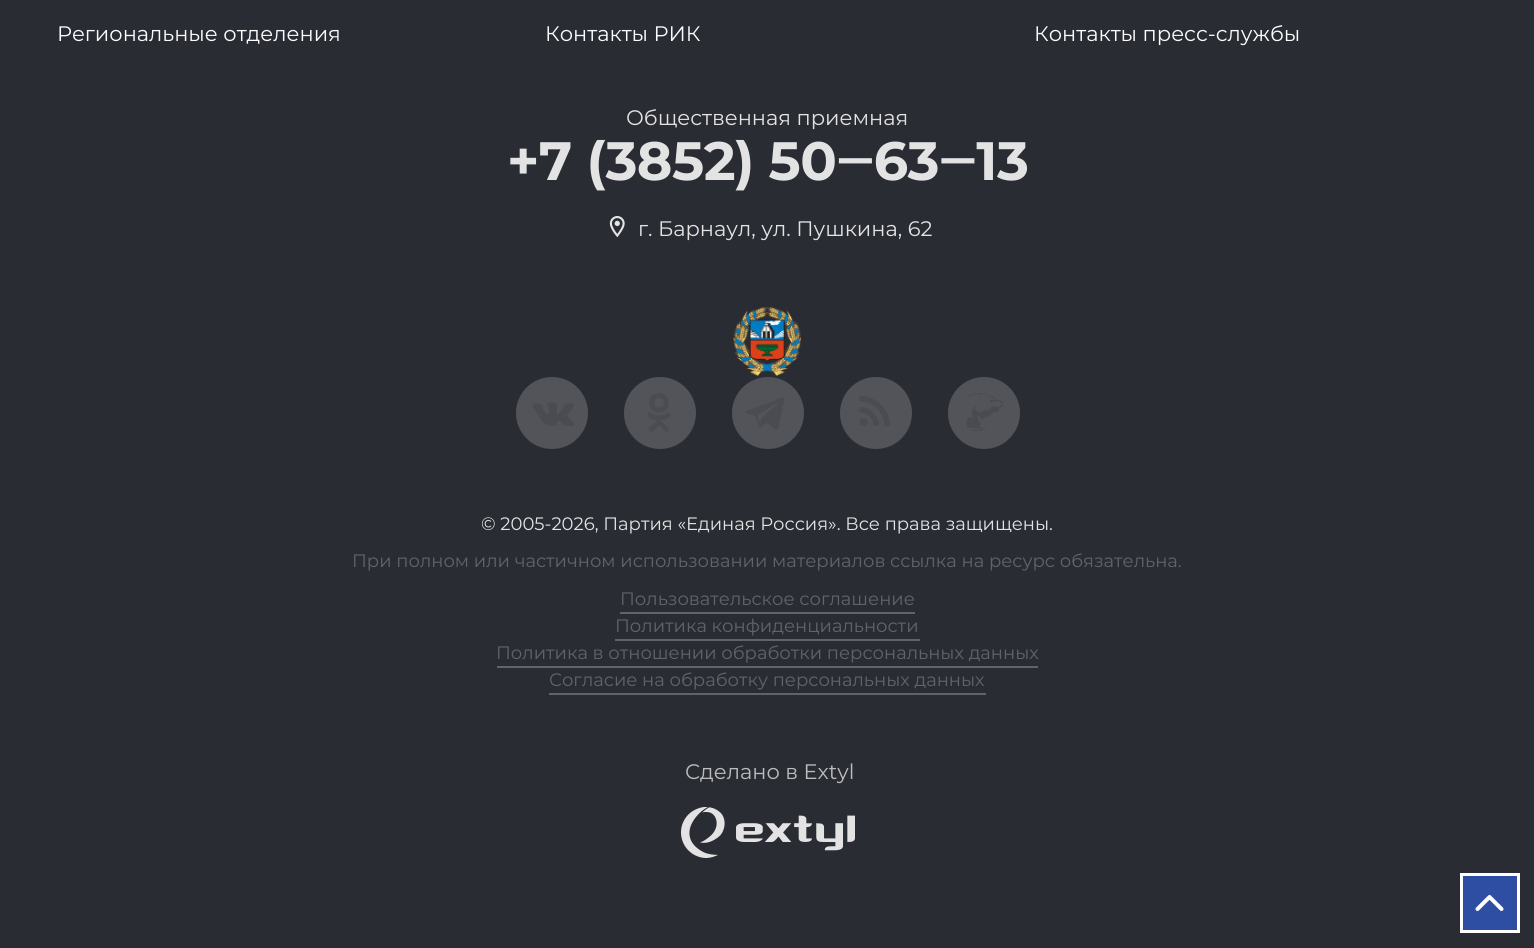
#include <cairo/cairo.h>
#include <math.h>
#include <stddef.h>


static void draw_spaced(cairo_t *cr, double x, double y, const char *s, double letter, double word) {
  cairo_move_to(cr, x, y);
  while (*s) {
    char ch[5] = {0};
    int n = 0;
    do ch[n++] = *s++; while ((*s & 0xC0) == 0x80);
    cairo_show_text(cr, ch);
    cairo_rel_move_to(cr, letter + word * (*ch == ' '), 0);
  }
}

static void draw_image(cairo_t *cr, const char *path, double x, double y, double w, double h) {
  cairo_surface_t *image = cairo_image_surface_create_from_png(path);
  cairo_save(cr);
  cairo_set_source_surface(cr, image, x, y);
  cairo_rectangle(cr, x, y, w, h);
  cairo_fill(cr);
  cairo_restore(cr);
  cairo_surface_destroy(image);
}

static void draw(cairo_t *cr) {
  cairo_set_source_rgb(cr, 42 / 255.0, 44 / 255.0, 52 / 255.0);
  cairo_paint(cr);
  draw_image(cr, "images/1.png", 609, 216, 16, 22);
  draw_image(cr, "images/2.png", 733, 307, 68, 69);
  cairo_set_source_rgb(cr, 82 / 255.0, 84 / 255.0, 90 / 255.0);
  cairo_arc(cr, 552, 413, 36, 0, 2 * M_PI);
  cairo_fill(cr);
  draw_image(cr, "images/3.png", 533, 402, 41, 24);
  cairo_arc(cr, 660, 413, 36, 0, 2 * M_PI);
  cairo_fill(cr);
  draw_image(cr, "images/4.png", 647, 393, 24, 39);
  cairo_arc(cr, 768, 413, 36, 0, 2 * M_PI);
  cairo_fill(cr);
  draw_image(cr, "images/5.png", 746, 397, 38, 33);
  cairo_arc(cr, 876, 413, 36, 0, 2 * M_PI);
  cairo_fill(cr);
  draw_image(cr, "images/6.png", 859, 396, 31, 30);
  cairo_arc(cr, 984, 413, 36, 0, 2 * M_PI);
  cairo_fill(cr);
  draw_image(cr, "images/7.png", 966, 393, 37, 38);
  cairo_set_source_rgb(cr, 98 / 255.0, 99 / 255.0, 105 / 255.0);
  cairo_rectangle(cr, 620, 612, 295, 2);
  cairo_fill(cr);
  cairo_rectangle(cr, 615, 639, 305, 2);
  cairo_fill(cr);
  cairo_rectangle(cr, 497, 666, 541, 2);
  cairo_fill(cr);
  cairo_rectangle(cr, 549, 693, 437, 2);
  cairo_fill(cr);
  draw_image(cr, "images/8.png", 681, 807, 174, 51);
  cairo_set_source_rgb(cr, 46 / 255.0, 78 / 255.0, 164 / 255.0);
  cairo_rectangle(cr, 1461.5, 874.5, 57, 57);
  cairo_fill_preserve(cr);
  cairo_set_source_rgb(cr, 1, 1, 1);
  cairo_set_line_width(cr, 3);
  cairo_stroke(cr);
  draw_image(cr, "images/9.png", 1475, 895, 29, 16);
  cairo_select_font_face(cr, "Montserrat", CAIRO_FONT_SLANT_NORMAL, CAIRO_FONT_WEIGHT_NORMAL);
  cairo_set_font_size(cr, 21);
  cairo_set_source_rgb(cr, 252 / 255.0, 252 / 255.0, 252 / 255.0);
  cairo_move_to(cr, 57, 41);
  cairo_show_text(cr, "Региональные отделения");
  cairo_move_to(cr, 545, 41);
  cairo_show_text(cr, "Контакты РИК");
  cairo_move_to(cr, 1034, 41);
  cairo_show_text(cr, "Контакты пресс-службы");
  cairo_set_source_rgb(cr, 227 / 255.0, 227 / 255.0, 227 / 255.0);
  cairo_move_to(cr, 626, 125);
  cairo_show_text(cr, "Общественная приемная");
  cairo_select_font_face(cr, "Montserrat", CAIRO_FONT_SLANT_NORMAL, CAIRO_FONT_WEIGHT_BOLD);
  cairo_set_font_size(cr, 54);
  draw_spaced(cr, 507, 180, "+7 (3852) 50‒63‒13", -0.5, 0);
  cairo_select_font_face(cr, "Montserrat", CAIRO_FONT_SLANT_NORMAL, CAIRO_FONT_WEIGHT_NORMAL);
  cairo_set_font_size(cr, 21);
  cairo_move_to(cr, 638, 236);
  cairo_show_text(cr, "г. Барнаул, ул. Пушкина, 62");
  cairo_set_font_size(cr, 18);
  cairo_move_to(cr, 481, 530);
  cairo_show_text(cr, "© 2005-2026, Партия «Единая Россия». Все права защищены.");
  cairo_set_source_rgb(cr, 98 / 255.0, 99 / 255.0, 105 / 255.0);
  cairo_move_to(cr, 352, 567);
  cairo_show_text(cr, "При полном или частичном использовании материалов ссылка на ресурс обязательна.");
  cairo_move_to(cr, 620, 605);
  cairo_show_text(cr, "Пользовательское соглашение");
  cairo_move_to(cr, 615, 632);
  cairo_show_text(cr, "Политика конфиденциальности");
  cairo_move_to(cr, 496, 659);
  cairo_show_text(cr, "Политика в отношении обработки персональных данных");
  cairo_move_to(cr, 549, 686);
  cairo_show_text(cr, "Согласие на обработку персональных данных");
  cairo_set_font_size(cr, 21);
  cairo_set_source_rgb(cr, 189 / 255.0, 189 / 255.0, 189 / 255.0);
  cairo_move_to(cr, 685, 779);
  cairo_show_text(cr, "Сделано в Extyl");
}

int main(void) {
  cairo_surface_t *surface = cairo_image_surface_create(CAIRO_FORMAT_RGB24, 1534, 948);
  cairo_t *cr = cairo_create(surface);
  cairo_font_options_t *options = cairo_font_options_create();
  cairo_font_options_set_hint_metrics(options, CAIRO_HINT_METRICS_OFF);
  cairo_font_options_set_hint_style(options, CAIRO_HINT_STYLE_NONE);
  cairo_set_font_options(cr, options);
  cairo_set_miter_limit(cr, 4);
  draw(cr);
  cairo_surface_write_to_png(surface, "out.png");
  cairo_font_options_destroy(options);
  cairo_destroy(cr);
  cairo_surface_destroy(surface);
  return 0;
}
